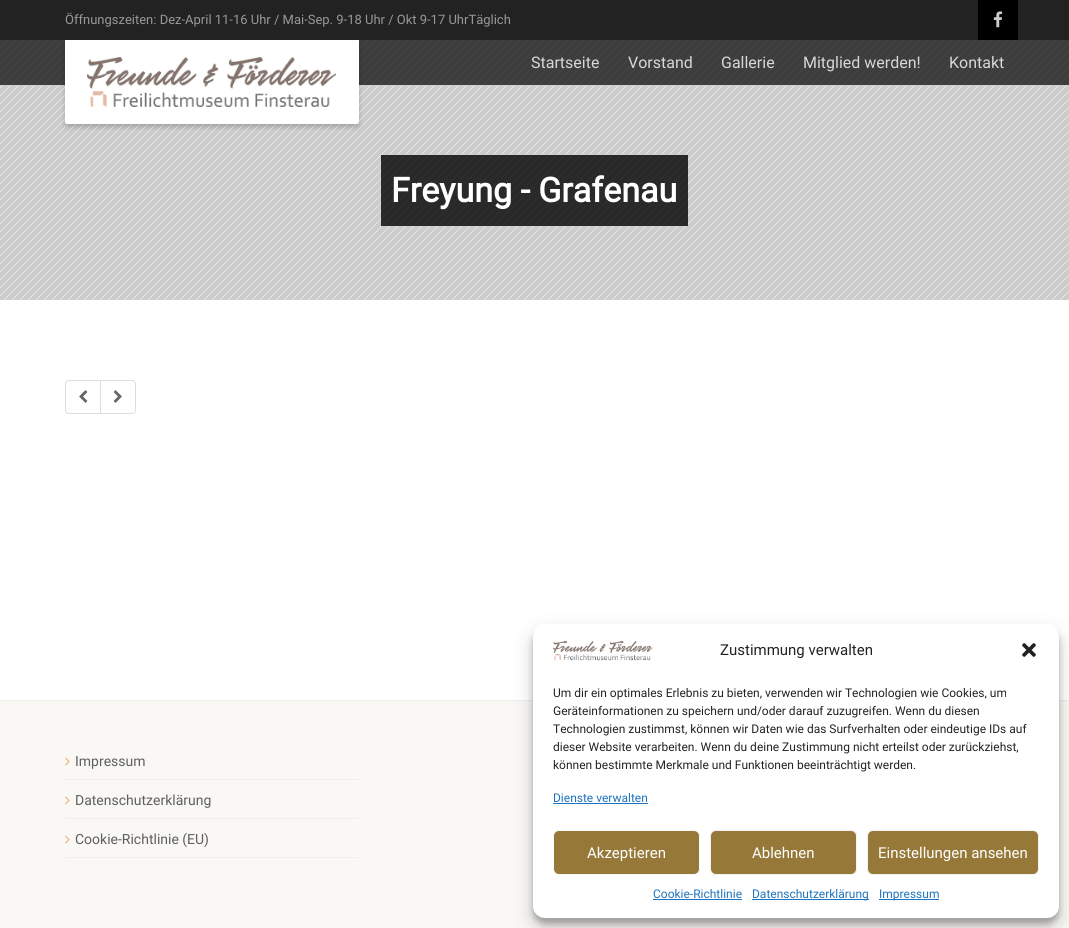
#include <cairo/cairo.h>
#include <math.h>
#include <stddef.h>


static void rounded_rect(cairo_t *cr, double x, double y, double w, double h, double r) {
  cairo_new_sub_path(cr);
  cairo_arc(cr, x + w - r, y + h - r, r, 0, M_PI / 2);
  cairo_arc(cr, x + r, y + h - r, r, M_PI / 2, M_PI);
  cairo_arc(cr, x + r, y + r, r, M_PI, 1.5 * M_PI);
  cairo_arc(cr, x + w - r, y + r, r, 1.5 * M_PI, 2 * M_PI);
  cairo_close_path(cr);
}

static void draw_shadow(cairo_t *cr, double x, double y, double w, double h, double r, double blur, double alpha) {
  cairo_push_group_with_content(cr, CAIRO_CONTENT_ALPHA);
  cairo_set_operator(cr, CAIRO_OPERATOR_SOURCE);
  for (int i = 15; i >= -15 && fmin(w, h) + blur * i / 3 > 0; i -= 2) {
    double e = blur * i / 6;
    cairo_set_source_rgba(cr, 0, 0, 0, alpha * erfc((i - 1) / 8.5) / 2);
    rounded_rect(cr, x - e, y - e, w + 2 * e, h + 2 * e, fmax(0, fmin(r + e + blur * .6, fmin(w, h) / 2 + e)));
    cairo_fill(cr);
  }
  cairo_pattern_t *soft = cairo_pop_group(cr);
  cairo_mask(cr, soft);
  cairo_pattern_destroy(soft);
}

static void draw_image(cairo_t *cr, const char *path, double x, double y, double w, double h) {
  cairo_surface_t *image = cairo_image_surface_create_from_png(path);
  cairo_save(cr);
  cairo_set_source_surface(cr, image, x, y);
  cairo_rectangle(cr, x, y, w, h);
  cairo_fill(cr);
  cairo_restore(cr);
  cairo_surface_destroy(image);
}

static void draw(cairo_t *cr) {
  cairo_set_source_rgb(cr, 1, 1, 1);
  cairo_paint(cr);
  cairo_set_source_rgb(cr, 34 / 255.0, 34 / 255.0, 34 / 255.0);
  cairo_rectangle(cr, 0, 0, 1069, 40);
  cairo_fill(cr);
  cairo_set_source_rgb(cr, 0, 0, 0);
  cairo_rectangle(cr, 978, 0, 40, 40);
  cairo_fill(cr);
  draw_image(cr, "images/1.png", 993, 11, 10, 17);
  cairo_set_source_rgb(cr, 204 / 255.0, 204 / 255.0, 204 / 255.0);
  cairo_rectangle(cr, 0, 40, 1069, 260);
  cairo_fill(cr);
  draw_image(cr, "images/3.png", 0, 40, 1069, 260);
  cairo_set_source_rgba(cr, 0, 0, 0, 0.7);
  cairo_rectangle(cr, 0, 40, 1069, 45);
  cairo_fill(cr);
  cairo_set_source_rgb(cr, 0, 0, 0);
  draw_shadow(cr, 65, 43, 294, 84, 2, 2.5, 0.2);
  cairo_set_source_rgb(cr, 1, 1, 1);
  cairo_new_path(cr);
  cairo_move_to(cr, 65, 40);
  cairo_line_to(cr, 359, 40);
  cairo_line_to(cr, 359, 122);
  cairo_curve_to(cr, 359, 123, 358, 124, 357, 124);
  cairo_line_to(cr, 67, 124);
  cairo_curve_to(cr, 66, 124, 65, 123, 65, 122);
  cairo_close_path(cr);
  cairo_fill(cr);
  draw_image(cr, "images/2.png", 87, 57, 249, 50);
  cairo_set_source_rgba(cr, 0, 0, 0, 0.8);
  cairo_rectangle(cr, 381, 155, 307, 71);
  cairo_fill(cr);
  cairo_new_path(cr);
  cairo_move_to(cr, 69, 380.5);
  cairo_line_to(cr, 100.5, 380.5);
  cairo_line_to(cr, 100.5, 413.5);
  cairo_line_to(cr, 69, 413.5);
  cairo_curve_to(cr, 67, 413.5, 65.5, 412, 65.5, 410);
  cairo_line_to(cr, 65.5, 384);
  cairo_curve_to(cr, 65.5, 382, 67, 380.5, 69, 380.5);
  cairo_close_path(cr);
  cairo_set_source_rgb(cr, 221 / 255.0, 221 / 255.0, 221 / 255.0);
  cairo_set_line_width(cr, 1);
  cairo_stroke(cr);
  draw_image(cr, "images/4.png", 79, 390, 9, 13);
  cairo_set_source_rgb(cr, 1, 1, 1);
  cairo_new_path(cr);
  cairo_move_to(cr, 100.5, 380.5);
  cairo_line_to(cr, 132, 380.5);
  cairo_curve_to(cr, 134, 380.5, 135.5, 382, 135.5, 384);
  cairo_line_to(cr, 135.5, 410);
  cairo_curve_to(cr, 135.5, 412, 134, 413.5, 132, 413.5);
  cairo_line_to(cr, 100.5, 413.5);
  cairo_close_path(cr);
  cairo_fill_preserve(cr);
  cairo_set_source_rgb(cr, 221 / 255.0, 221 / 255.0, 221 / 255.0);
  cairo_stroke(cr);
  draw_image(cr, "images/5.png", 113, 390, 9, 13);
  cairo_set_source_rgb(cr, 249 / 255.0, 248 / 255.0, 245 / 255.0);
  cairo_rectangle(cr, 0, 701, 1069, 227);
  cairo_fill(cr);
  cairo_set_source_rgb(cr, 238 / 255.0, 238 / 255.0, 238 / 255.0);
  cairo_rectangle(cr, 0, 700, 1069, 1);
  cairo_fill(cr);
  cairo_rectangle(cr, 65, 779, 293, 1);
  cairo_fill(cr);
  draw_image(cr, "images/6.png", 65, 757, 5, 9);
  cairo_rectangle(cr, 65, 818, 293, 1);
  cairo_fill(cr);
  draw_image(cr, "images/6.png", 65, 796, 5, 9);
  cairo_rectangle(cr, 65, 857, 293, 1);
  cairo_fill(cr);
  draw_image(cr, "images/6.png", 65, 835, 5, 9);
  cairo_set_source_rgb(cr, 0, 0, 0);
  draw_shadow(cr, 533, 630, 526, 294, 12, 3, 0.23);
  draw_shadow(cr, 533, 634, 526, 294, 12, 10, 0.19);
  cairo_set_source_rgb(cr, 1, 1, 1);
  rounded_rect(cr, 533, 624, 526, 294, 12);
  cairo_fill(cr);
  draw_image(cr, "images/7.png", 553, 640, 100, 21);
  draw_image(cr, "images/8.png", 1022, 643, 14, 14);
  cairo_set_source_rgb(cr, 30 / 255.0, 115 / 255.0, 190 / 255.0);
  cairo_rectangle(cr, 553, 803, 95, 1);
  cairo_fill(cr);
  cairo_set_source_rgb(cr, 150 / 255.0, 121 / 255.0, 57 / 255.0);
  rounded_rect(cr, 553.5, 830.5, 146, 44, 5.5);
  cairo_fill_preserve(cr);
  cairo_set_source_rgb(cr, 248 / 255.0, 249 / 255.0, 246 / 255.0);
  cairo_stroke(cr);
  cairo_set_source_rgb(cr, 150 / 255.0, 121 / 255.0, 57 / 255.0);
  rounded_rect(cr, 710.5, 830.5, 146, 44, 5.5);
  cairo_fill_preserve(cr);
  cairo_set_source_rgb(cr, 242 / 255.0, 242 / 255.0, 242 / 255.0);
  cairo_stroke(cr);
  cairo_set_source_rgb(cr, 150 / 255.0, 121 / 255.0, 57 / 255.0);
  rounded_rect(cr, 867.5, 830.5, 171, 44, 5.5);
  cairo_fill_preserve(cr);
  cairo_set_source_rgb(cr, 242 / 255.0, 242 / 255.0, 242 / 255.0);
  cairo_stroke(cr);
  cairo_set_source_rgb(cr, 30 / 255.0, 115 / 255.0, 190 / 255.0);
  cairo_rectangle(cr, 653, 899, 89, 1);
  cairo_fill(cr);
  cairo_rectangle(cr, 752, 899, 117, 1);
  cairo_fill(cr);
  cairo_rectangle(cr, 879, 899, 60, 1);
  cairo_fill(cr);
  cairo_select_font_face(cr, "Roboto", CAIRO_FONT_SLANT_NORMAL, CAIRO_FONT_WEIGHT_NORMAL);
  cairo_set_font_size(cr, 13);
  cairo_set_source_rgb(cr, 153 / 255.0, 153 / 255.0, 153 / 255.0);
  cairo_move_to(cr, 65, 24);
  cairo_show_text(cr, "Öffnungszeiten: Dez-April 11-16 Uhr / Mai-Sep. 9-18 Uhr / Okt 9-17 UhrTäglich");
  cairo_set_font_size(cr, 16);
  cairo_set_source_rgb(cr, 216 / 255.0, 216 / 255.0, 216 / 255.0);
  cairo_move_to(cr, 531, 68);
  cairo_show_text(cr, "Startseite");
  cairo_move_to(cr, 628, 68);
  cairo_show_text(cr, "Vorstand");
  cairo_move_to(cr, 721, 68);
  cairo_show_text(cr, "Gallerie");
  cairo_move_to(cr, 803, 68);
  cairo_show_text(cr, "Mitglied werden!");
  cairo_move_to(cr, 949, 68);
  cairo_show_text(cr, "Kontakt");
  cairo_select_font_face(cr, "Roboto", CAIRO_FONT_SLANT_NORMAL, CAIRO_FONT_WEIGHT_BOLD);
  cairo_set_font_size(cr, 34);
  cairo_set_source_rgb(cr, 1, 1, 1);
  cairo_move_to(cr, 391, 202);
  cairo_show_text(cr, "Freyung - Grafenau");
  cairo_select_font_face(cr, "Roboto", CAIRO_FONT_SLANT_NORMAL, CAIRO_FONT_WEIGHT_NORMAL);
  cairo_set_font_size(cr, 14);
  cairo_set_source_rgb(cr, 94 / 255.0, 94 / 255.0, 94 / 255.0);
  cairo_move_to(cr, 75, 766);
  cairo_show_text(cr, "Impressum");
  cairo_move_to(cr, 75, 805);
  cairo_show_text(cr, "Datenschutzerklärung");
  cairo_move_to(cr, 75, 844);
  cairo_show_text(cr, "Cookie-Richtlinie (EU)");
  cairo_set_font_size(cr, 15);
  cairo_set_source_rgb(cr, 34 / 255.0, 34 / 255.0, 34 / 255.0);
  cairo_move_to(cr, 720, 655);
  cairo_show_text(cr, "Zustimmung verwalten");
  cairo_set_font_size(cr, 12);
  cairo_move_to(cr, 553, 697);
  cairo_show_text(cr, "Um dir ein optimales Erlebnis zu bieten, verwenden wir Technologien wie Cookies, um");
  cairo_move_to(cr, 553, 715);
  cairo_show_text(cr, "Geräteinformationen zu speichern und/oder darauf zuzugreifen. Wenn du diesen");
  cairo_move_to(cr, 553, 733);
  cairo_show_text(cr, "Technologien zustimmst, können wir Daten wie das Surfverhalten oder eindeutige IDs auf");
  cairo_move_to(cr, 553, 751);
  cairo_show_text(cr, "dieser Website verarbeiten. Wenn du deine Zustimmung nicht erteilst oder zurückziehst,");
  cairo_move_to(cr, 553, 769);
  cairo_show_text(cr, "können bestimmte Merkmale und Funktionen beeinträchtigt werden.");
  cairo_set_source_rgb(cr, 30 / 255.0, 115 / 255.0, 190 / 255.0);
  cairo_move_to(cr, 553, 802);
  cairo_show_text(cr, "Dienste verwalten");
  cairo_set_font_size(cr, 15);
  cairo_set_source_rgb(cr, 1, 1, 1);
  cairo_move_to(cr, 587, 858);
  cairo_show_text(cr, "Akzeptieren");
  cairo_move_to(cr, 752, 858);
  cairo_show_text(cr, "Ablehnen");
  cairo_move_to(cr, 878, 858);
  cairo_show_text(cr, "Einstellungen ansehen");
  cairo_set_font_size(cr, 12);
  cairo_set_source_rgb(cr, 30 / 255.0, 115 / 255.0, 190 / 255.0);
  cairo_move_to(cr, 653, 898);
  cairo_show_text(cr, "Cookie-Richtlinie");
  cairo_move_to(cr, 752, 898);
  cairo_show_text(cr, "Datenschutzerklärung");
  cairo_move_to(cr, 879, 898);
  cairo_show_text(cr, "Impressum");
}

int main(void) {
  cairo_surface_t *surface = cairo_image_surface_create(CAIRO_FORMAT_RGB24, 1069, 928);
  cairo_t *cr = cairo_create(surface);
  cairo_font_options_t *options = cairo_font_options_create();
  cairo_font_options_set_hint_metrics(options, CAIRO_HINT_METRICS_OFF);
  cairo_font_options_set_hint_style(options, CAIRO_HINT_STYLE_NONE);
  cairo_set_font_options(cr, options);
  cairo_set_miter_limit(cr, 4);
  draw(cr);
  cairo_surface_write_to_png(surface, "out.png");
  cairo_font_options_destroy(options);
  cairo_destroy(cr);
  cairo_surface_destroy(surface);
  return 0;
}
